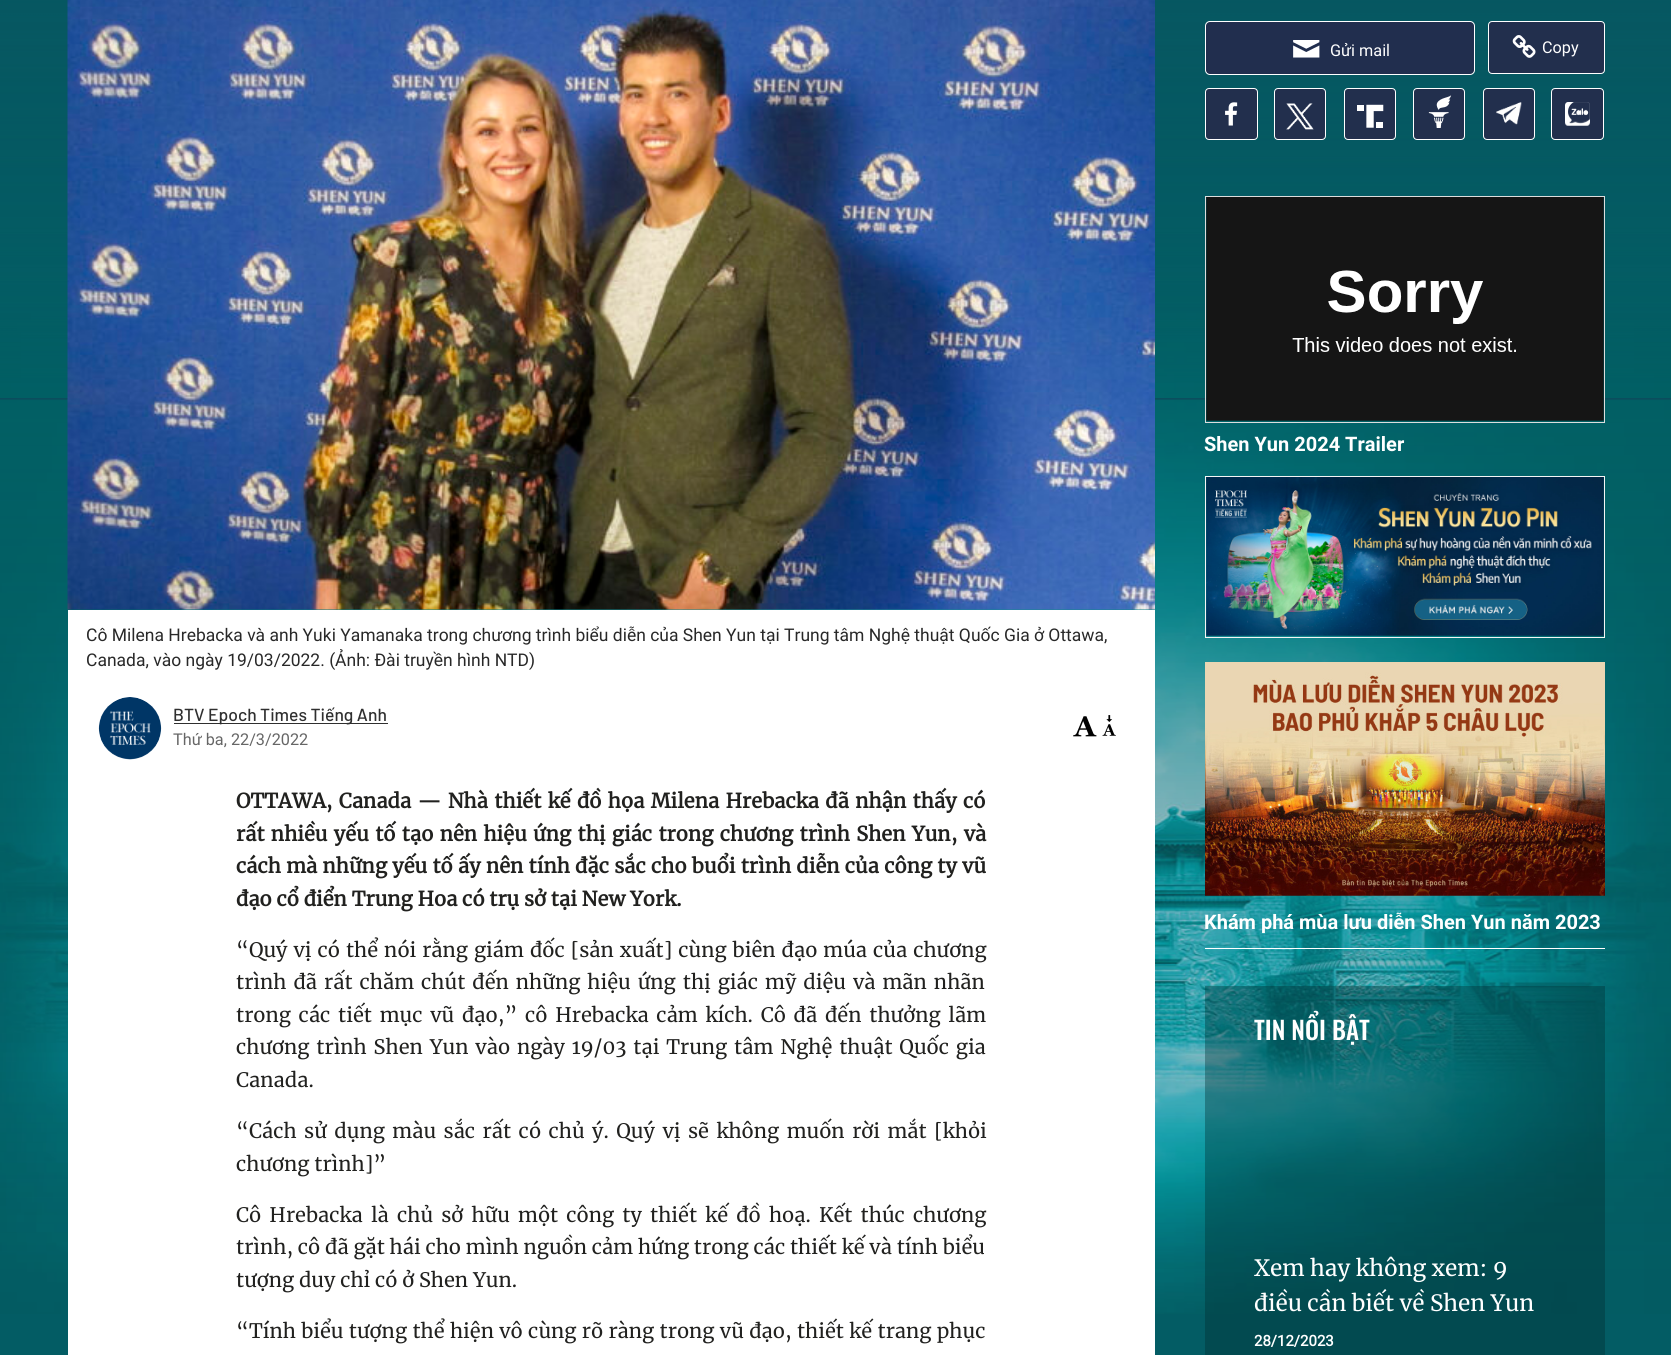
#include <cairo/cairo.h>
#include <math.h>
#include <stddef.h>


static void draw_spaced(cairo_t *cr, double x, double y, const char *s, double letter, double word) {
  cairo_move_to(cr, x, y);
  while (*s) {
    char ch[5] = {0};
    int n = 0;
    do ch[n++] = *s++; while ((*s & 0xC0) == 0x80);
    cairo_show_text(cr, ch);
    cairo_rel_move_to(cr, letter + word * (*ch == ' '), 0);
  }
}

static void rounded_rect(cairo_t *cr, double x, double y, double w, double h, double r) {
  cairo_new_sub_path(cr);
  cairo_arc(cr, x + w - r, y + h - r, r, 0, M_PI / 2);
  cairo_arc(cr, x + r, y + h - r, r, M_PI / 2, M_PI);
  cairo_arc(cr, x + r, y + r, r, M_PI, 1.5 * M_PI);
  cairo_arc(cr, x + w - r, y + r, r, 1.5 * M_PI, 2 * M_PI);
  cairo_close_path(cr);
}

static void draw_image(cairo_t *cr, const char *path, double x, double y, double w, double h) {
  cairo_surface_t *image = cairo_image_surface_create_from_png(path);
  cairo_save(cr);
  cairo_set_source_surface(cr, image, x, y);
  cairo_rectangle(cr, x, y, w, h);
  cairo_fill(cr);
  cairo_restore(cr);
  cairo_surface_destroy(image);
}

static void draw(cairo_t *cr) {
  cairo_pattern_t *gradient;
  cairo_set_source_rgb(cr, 3 / 255.0, 92 / 255.0, 100 / 255.0);
  cairo_paint(cr);
  draw_image(cr, "images/1.png", 0, 313, 1671, 1001);
  draw_image(cr, "images/2.png", 0, 0, 1671, 400);
  gradient = cairo_pattern_create_linear(836, -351, 836, 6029);
  cairo_pattern_add_color_stop_rgba(gradient, 0, 0, 98 / 255.0, 101 / 255.0, 0.83);
  cairo_pattern_add_color_stop_rgba(gradient, 0.3, 0, 98 / 255.0, 101 / 255.0, 0);
  cairo_set_source(cr, gradient);
  cairo_pattern_destroy(gradient);
  cairo_rectangle(cr, 0, 0, 1671, 1269);
  cairo_fill(cr);
  draw_image(cr, "images/3.png", 67, 0, 1088, 610);
  cairo_set_source_rgb(cr, 1, 1, 1);
  cairo_rectangle(cr, 68, 610, 1087, 745);
  cairo_fill(cr);
  draw_image(cr, "images/4.png", 98, 697, 64, 63);
  cairo_set_source_rgb(cr, 47 / 255.0, 47 / 255.0, 47 / 255.0);
  cairo_rectangle(cr, 174, 723, 214, 1);
  cairo_fill(cr);
  draw_image(cr, "images/5.png", 1073, 716, 24, 21);
  draw_image(cr, "images/6.png", 1102, 715, 14, 21);
  cairo_set_source_rgb(cr, 33 / 255.0, 46 / 255.0, 78 / 255.0);
  rounded_rect(cr, 1205.5, 21.5, 269, 53, 4.5);
  cairo_fill_preserve(cr);
  cairo_set_source_rgb(cr, 1, 1, 1);
  cairo_set_line_width(cr, 1);
  cairo_stroke(cr);
  draw_image(cr, "images/7.png", 1293, 40, 27, 18);
  cairo_set_source_rgb(cr, 34 / 255.0, 47 / 255.0, 77 / 255.0);
  rounded_rect(cr, 1488.5, 21.5, 116, 52, 3.5);
  cairo_fill_preserve(cr);
  cairo_set_source_rgb(cr, 1, 1, 1);
  cairo_stroke(cr);
  draw_image(cr, "images/8.png", 1512, 35, 24, 23);
  cairo_set_source_rgb(cr, 34 / 255.0, 47 / 255.0, 77 / 255.0);
  rounded_rect(cr, 1205.5, 88.5, 52, 51, 3.5);
  cairo_fill_preserve(cr);
  cairo_set_source_rgb(cr, 1, 1, 1);
  cairo_stroke(cr);
  draw_image(cr, "images/9.png", 1225, 102, 13, 24);
  cairo_set_source_rgb(cr, 34 / 255.0, 47 / 255.0, 77 / 255.0);
  rounded_rect(cr, 1274.5, 88.5, 51, 51, 3.5);
  cairo_fill_preserve(cr);
  cairo_set_source_rgb(cr, 1, 1, 1);
  cairo_stroke(cr);
  draw_image(cr, "images/10.png", 1286, 103, 28, 27);
  cairo_set_source_rgb(cr, 34 / 255.0, 47 / 255.0, 77 / 255.0);
  rounded_rect(cr, 1344.5, 88.5, 51, 51, 3.5);
  cairo_fill_preserve(cr);
  cairo_set_source_rgb(cr, 1, 1, 1);
  cairo_stroke(cr);
  draw_image(cr, "images/11.png", 1357, 104, 27, 24);
  cairo_set_source_rgb(cr, 34 / 255.0, 47 / 255.0, 77 / 255.0);
  rounded_rect(cr, 1413.5, 88.5, 51, 51, 3.5);
  cairo_fill_preserve(cr);
  cairo_set_source_rgb(cr, 1, 1, 1);
  cairo_stroke(cr);
  draw_image(cr, "images/12.png", 1428, 95, 24, 33);
  cairo_set_source_rgb(cr, 34 / 255.0, 47 / 255.0, 77 / 255.0);
  rounded_rect(cr, 1483.5, 88.5, 51, 51, 3.5);
  cairo_fill_preserve(cr);
  cairo_set_source_rgb(cr, 1, 1, 1);
  cairo_stroke(cr);
  draw_image(cr, "images/13.png", 1496, 102, 26, 23);
  cairo_set_source_rgb(cr, 34 / 255.0, 47 / 255.0, 77 / 255.0);
  rounded_rect(cr, 1551.5, 88.5, 52, 51, 3.5);
  cairo_fill_preserve(cr);
  cairo_set_source_rgb(cr, 1, 1, 1);
  cairo_stroke(cr);
  draw_image(cr, "images/14.png", 1565, 102, 25, 24);
  cairo_rectangle(cr, 1205.5, 196.5, 399, 226);
  cairo_set_source_rgb(cr, 221 / 255.0, 221 / 255.0, 221 / 255.0);
  cairo_stroke(cr);
  draw_image(cr, "images/15.png", 1206, 197, 398, 224);
  cairo_rectangle(cr, 1205.5, 476.5, 399, 161);
  cairo_set_source_rgb(cr, 245 / 255.0, 245 / 255.0, 245 / 255.0);
  cairo_stroke(cr);
  draw_image(cr, "images/16.png", 1206, 477, 398, 159);
  draw_image(cr, "images/17.png", 1205, 662, 400, 234);
  cairo_set_source_rgb(cr, 1, 1, 1);
  cairo_rectangle(cr, 1205, 948, 400, 1);
  cairo_fill(cr);
  cairo_set_source_rgba(cr, 0, 45 / 255.0, 46 / 255.0, 0.37);
  cairo_rectangle(cr, 1205, 986, 400, 369);
  cairo_fill(cr);
  cairo_select_font_face(cr, "Roboto", CAIRO_FONT_SLANT_NORMAL, CAIRO_FONT_WEIGHT_NORMAL);
  cairo_set_font_size(cr, 17.5);
  cairo_set_source_rgb(cr, 40 / 255.0, 40 / 255.0, 40 / 255.0);
  cairo_move_to(cr, 86, 641);
  cairo_show_text(cr, "Cô Milena Hrebacka và anh Yuki Yamanaka trong chương trình biểu diễn của Shen Yun tại Trung tâm Nghệ thuật Quốc Gia ở Ottawa,");
  cairo_move_to(cr, 86, 666);
  cairo_show_text(cr, "Canada, vào ngày 19/03/2022. (Ảnh: Đài truyền hình NTD)");
  cairo_select_font_face(cr, "Barlow Medium", CAIRO_FONT_SLANT_NORMAL, CAIRO_FONT_WEIGHT_NORMAL);
  cairo_set_source_rgb(cr, 47 / 255.0, 47 / 255.0, 47 / 255.0);
  cairo_move_to(cr, 173, 721);
  cairo_show_text(cr, "BTV Epoch Times Tiếng Anh");
  cairo_select_font_face(cr, "Roboto", CAIRO_FONT_SLANT_NORMAL, CAIRO_FONT_WEIGHT_NORMAL);
  cairo_set_font_size(cr, 16.25);
  cairo_set_source_rgb(cr, 102 / 255.0, 102 / 255.0, 102 / 255.0);
  cairo_move_to(cr, 173, 745);
  cairo_show_text(cr, "Thứ ba, 22/3/2022");
  cairo_select_font_face(cr, "Merriweather", CAIRO_FONT_SLANT_NORMAL, CAIRO_FONT_WEIGHT_BOLD);
  cairo_set_font_size(cr, 20);
  cairo_set_source_rgb(cr, 33 / 255.0, 33 / 255.0, 31 / 255.0);
  draw_spaced(cr, 236, 808, "OTTAWA, Canada — Nhà thiết kế đồ họa Milena Hrebacka đã nhận thấy có", 0, 1.6);
  draw_spaced(cr, 236, 841, "rất nhiều yếu tố tạo nên hiệu ứng thị giác trong chương trình Shen Yun, và", 0, 1.6);
  draw_spaced(cr, 236, 873, "cách mà những yếu tố ấy nên tính đặc sắc cho buổi trình diễn của công ty vũ", 0, 0.5);
  cairo_move_to(cr, 236, 906);
  cairo_show_text(cr, "đạo cổ điển Trung Hoa có trụ sở tại New York.");
  cairo_select_font_face(cr, "Merriweather", CAIRO_FONT_SLANT_NORMAL, CAIRO_FONT_WEIGHT_NORMAL);
  draw_spaced(cr, 236, 957, "“Quý vị có thể nói rằng giám đốc [sản xuất] cùng biên đạo múa của chương", 0, 1.25);
  draw_spaced(cr, 236, 989, "trình đã rất chăm chút đến những hiệu ứng thị giác mỹ diệu và mãn nhãn", 0, 2.25);
  draw_spaced(cr, 236, 1022, "trong các tiết mục vũ đạo,” cô Hrebacka cảm kích. Cô đã đến thưởng lãm", 0, 3);
  draw_spaced(cr, 236, 1054, "chương trình Shen Yun vào ngày 19/03 tại Trung tâm Nghệ thuật Quốc gia", 0, 2.1);
  cairo_move_to(cr, 236, 1087);
  cairo_show_text(cr, "Canada.");
  draw_spaced(cr, 236, 1138, "“Cách sử dụng màu sắc rất có chủ ý. Quý vị sẽ không muốn rời mắt [khỏi", 0, 2.75);
  cairo_move_to(cr, 236, 1171);
  cairo_show_text(cr, "chương trình]”");
  draw_spaced(cr, 236, 1222, "Cô Hrebacka là chủ sở hữu một công ty thiết kế đồ hoạ. Kết thúc chương", 0, 3.4);
  cairo_move_to(cr, 236, 1254);
  cairo_show_text(cr, "trình, cô đã gặt hái cho mình nguồn cảm hứng trong các thiết kế và tính biểu");
  cairo_move_to(cr, 236, 1287);
  cairo_show_text(cr, "tượng duy chỉ có ở Shen Yun.");
  draw_spaced(cr, 236, 1338, "“Tính biểu tượng thể hiện vô cùng rõ ràng trong vũ đạo, thiết kế trang phục", 0, 0.6);
  cairo_select_font_face(cr, "Roboto", CAIRO_FONT_SLANT_NORMAL, CAIRO_FONT_WEIGHT_NORMAL);
  cairo_set_font_size(cr, 16.25);
  cairo_set_source_rgb(cr, 1, 1, 1);
  cairo_move_to(cr, 1330, 56);
  cairo_show_text(cr, "Gửi mail");
  cairo_move_to(cr, 1542, 53);
  cairo_show_text(cr, "Copy");
  cairo_select_font_face(cr, "Roboto", CAIRO_FONT_SLANT_NORMAL, CAIRO_FONT_WEIGHT_BOLD);
  cairo_set_font_size(cr, 20);
  cairo_move_to(cr, 1204, 451);
  cairo_show_text(cr, "Shen Yun 2024 Trailer");
  cairo_move_to(cr, 1204, 929);
  cairo_show_text(cr, "Khám phá mùa lưu diễn Shen Yun năm 2023");
  cairo_select_font_face(cr, "Oswald Medium", CAIRO_FONT_SLANT_NORMAL, CAIRO_FONT_WEIGHT_NORMAL);
  cairo_set_font_size(cr, 25);
  cairo_move_to(cr, 1254, 1040);
  cairo_show_text(cr, "TIN NỔI BẬT");
  cairo_select_font_face(cr, "Merriweather", CAIRO_FONT_SLANT_NORMAL, CAIRO_FONT_WEIGHT_NORMAL);
  cairo_set_font_size(cr, 22.5);
  cairo_move_to(cr, 1254, 1276);
  cairo_show_text(cr, "Xem hay không xem: 9");
  cairo_move_to(cr, 1254, 1311);
  cairo_show_text(cr, "điều cần biết về Shen Yun");
  cairo_select_font_face(cr, "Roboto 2", CAIRO_FONT_SLANT_NORMAL, CAIRO_FONT_WEIGHT_BOLD);
  cairo_set_font_size(cr, 15);
  cairo_move_to(cr, 1254, 1346);
  cairo_show_text(cr, "28/12/2023");
}

int main(void) {
  cairo_surface_t *surface = cairo_image_surface_create(CAIRO_FORMAT_RGB24, 1671, 1355);
  cairo_t *cr = cairo_create(surface);
  cairo_font_options_t *options = cairo_font_options_create();
  cairo_font_options_set_hint_metrics(options, CAIRO_HINT_METRICS_OFF);
  cairo_font_options_set_hint_style(options, CAIRO_HINT_STYLE_NONE);
  cairo_set_font_options(cr, options);
  cairo_set_miter_limit(cr, 4);
  draw(cr);
  cairo_surface_write_to_png(surface, "out.png");
  cairo_font_options_destroy(options);
  cairo_destroy(cr);
  cairo_surface_destroy(surface);
  return 0;
}
